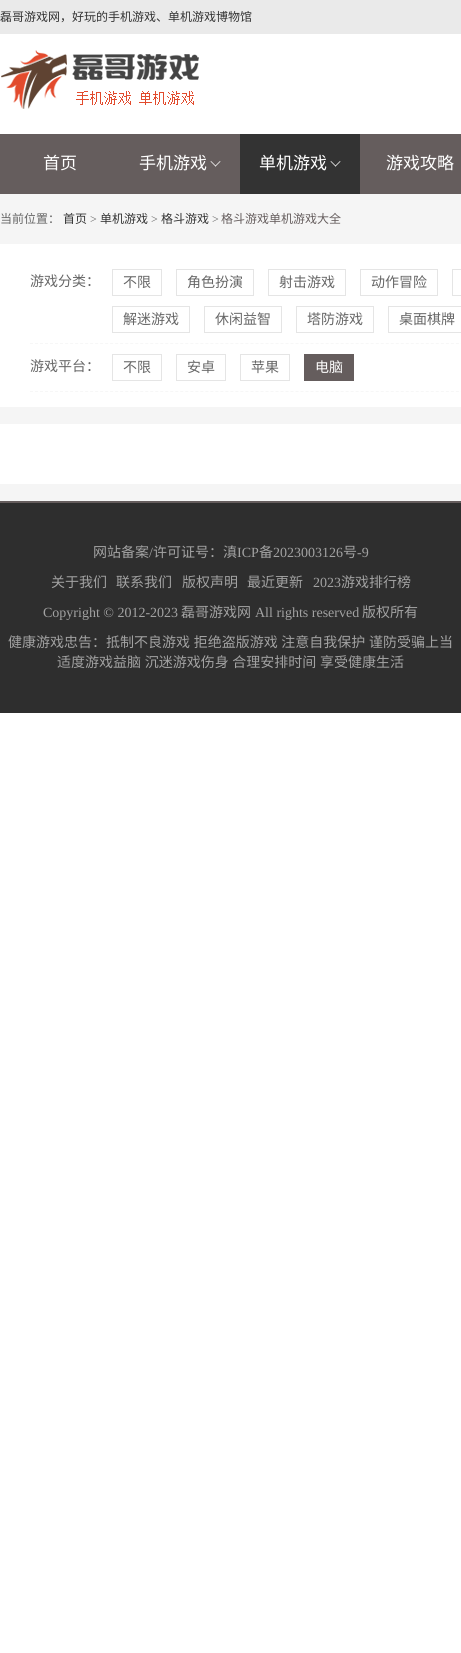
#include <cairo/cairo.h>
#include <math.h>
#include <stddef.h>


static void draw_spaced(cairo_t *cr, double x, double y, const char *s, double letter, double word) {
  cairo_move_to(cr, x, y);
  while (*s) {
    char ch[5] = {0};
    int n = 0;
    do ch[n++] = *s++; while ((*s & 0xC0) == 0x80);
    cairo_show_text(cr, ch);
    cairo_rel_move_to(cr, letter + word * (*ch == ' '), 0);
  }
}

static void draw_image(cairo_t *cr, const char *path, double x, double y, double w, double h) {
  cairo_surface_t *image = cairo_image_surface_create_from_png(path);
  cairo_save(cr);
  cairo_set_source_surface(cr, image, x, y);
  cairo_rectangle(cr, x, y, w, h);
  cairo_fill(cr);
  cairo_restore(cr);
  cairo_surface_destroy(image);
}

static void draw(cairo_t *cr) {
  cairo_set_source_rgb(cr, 1, 1, 1);
  cairo_paint(cr);
  cairo_set_source_rgb(cr, 245 / 255.0, 245 / 255.0, 245 / 255.0);
  cairo_rectangle(cr, 0, 194, 461, 307);
  cairo_fill(cr);
  cairo_set_source_rgb(cr, 234 / 255.0, 234 / 255.0, 234 / 255.0);
  cairo_rectangle(cr, 0, 0, 461, 34);
  cairo_fill(cr);
  draw_image(cr, "images/1.png", 1, 50, 198, 59);
  cairo_set_source_rgb(cr, 101 / 255.0, 93 / 255.0, 93 / 255.0);
  cairo_rectangle(cr, 0, 134, 461, 60);
  cairo_fill(cr);
  cairo_set_source_rgb(cr, 1, 1, 1);
  cairo_new_path(cr);
  cairo_move_to(cr, 220, 161);
  cairo_line_to(cr, 220.5, 161.5);
  cairo_line_to(cr, 215.5, 166.5);
  cairo_line_to(cr, 215, 166);
  cairo_close_path(cr);
  cairo_fill(cr);
  cairo_new_path(cr);
  cairo_move_to(cr, 211, 161);
  cairo_line_to(cr, 216, 166);
  cairo_line_to(cr, 215.5, 166.5);
  cairo_line_to(cr, 210.5, 161.5);
  cairo_close_path(cr);
  cairo_fill(cr);
  cairo_set_source_rgb(cr, 51 / 255.0, 51 / 255.0, 51 / 255.0);
  cairo_rectangle(cr, 240, 134, 120, 60);
  cairo_fill(cr);
  cairo_set_source_rgb(cr, 1, 1, 1);
  cairo_new_path(cr);
  cairo_move_to(cr, 340, 161);
  cairo_line_to(cr, 340.5, 161.5);
  cairo_line_to(cr, 335.5, 166.5);
  cairo_line_to(cr, 335, 166);
  cairo_close_path(cr);
  cairo_fill(cr);
  cairo_new_path(cr);
  cairo_move_to(cr, 331, 161);
  cairo_line_to(cr, 336, 166);
  cairo_line_to(cr, 335.5, 166.5);
  cairo_line_to(cr, 330.5, 161.5);
  cairo_close_path(cr);
  cairo_fill(cr);
  cairo_rectangle(cr, 0, 244, 461, 163);
  cairo_fill(cr);
  cairo_new_path(cr);
  cairo_move_to(cr, 30, 343.5);
  cairo_line_to(cr, 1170, 343.5);
  cairo_set_source_rgb(cr, 247 / 255.0, 247 / 255.0, 247 / 255.0);
  cairo_set_line_width(cr, 1);
  cairo_set_dash(cr, (double[]){3, 2.01}, 2, 0);
  cairo_stroke(cr);
  cairo_rectangle(cr, 112.5, 269.5, 49, 26);
  cairo_set_source_rgb(cr, 229 / 255.0, 229 / 255.0, 229 / 255.0);
  cairo_set_dash(cr, NULL, 0, 0);
  cairo_stroke(cr);
  cairo_rectangle(cr, 176.5, 269.5, 77, 26);
  cairo_stroke(cr);
  cairo_rectangle(cr, 268.5, 269.5, 77, 26);
  cairo_stroke(cr);
  cairo_rectangle(cr, 360.5, 269.5, 77, 26);
  cairo_stroke(cr);
  cairo_rectangle(cr, 452.5, 269.5, 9, 26);
  cairo_stroke(cr);
  cairo_rectangle(cr, 112.5, 306.5, 77, 26);
  cairo_stroke(cr);
  cairo_rectangle(cr, 204.5, 306.5, 77, 26);
  cairo_stroke(cr);
  cairo_rectangle(cr, 296.5, 306.5, 77, 26);
  cairo_stroke(cr);
  cairo_rectangle(cr, 388.5, 306.5, 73, 26);
  cairo_stroke(cr);
  cairo_new_path(cr);
  cairo_move_to(cr, 30, 391.5);
  cairo_line_to(cr, 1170, 391.5);
  cairo_set_source_rgb(cr, 247 / 255.0, 247 / 255.0, 247 / 255.0);
  cairo_set_dash(cr, (double[]){3, 2.01}, 2, 0);
  cairo_stroke(cr);
  cairo_rectangle(cr, 112.5, 354.5, 49, 26);
  cairo_set_source_rgb(cr, 229 / 255.0, 229 / 255.0, 229 / 255.0);
  cairo_set_dash(cr, NULL, 0, 0);
  cairo_stroke(cr);
  cairo_rectangle(cr, 176.5, 354.5, 49, 26);
  cairo_stroke(cr);
  cairo_rectangle(cr, 240.5, 354.5, 49, 26);
  cairo_stroke(cr);
  cairo_set_source_rgb(cr, 101 / 255.0, 93 / 255.0, 93 / 255.0);
  cairo_rectangle(cr, 304, 354, 50, 27);
  cairo_fill(cr);
  cairo_set_source_rgb(cr, 1, 1, 1);
  cairo_rectangle(cr, 0, 424, 461, 60);
  cairo_fill(cr);
  cairo_set_source_rgb(cr, 46 / 255.0, 46 / 255.0, 46 / 255.0);
  cairo_rectangle(cr, 0, 503, 461, 210);
  cairo_fill(cr);
  cairo_set_source_rgb(cr, 101 / 255.0, 93 / 255.0, 93 / 255.0);
  cairo_rectangle(cr, 0, 501, 461, 2);
  cairo_fill(cr);
  cairo_select_font_face(cr, "Noto Sans CJK SC", CAIRO_FONT_SLANT_NORMAL, CAIRO_FONT_WEIGHT_NORMAL);
  cairo_set_font_size(cr, 12);
  cairo_set_source_rgb(cr, 51 / 255.0, 51 / 255.0, 51 / 255.0);
  cairo_move_to(cr, 0, 21);
  cairo_show_text(cr, "磊哥游戏网，好玩的手机游戏、单机游戏博物馆");
  cairo_set_font_size(cr, 17);
  cairo_set_source_rgb(cr, 1, 1, 1);
  cairo_move_to(cr, 43, 169);
  cairo_show_text(cr, "首页");
  cairo_move_to(cr, 139, 169);
  cairo_show_text(cr, "手机游戏");
  cairo_move_to(cr, 259, 169);
  cairo_show_text(cr, "单机游戏");
  cairo_move_to(cr, 386, 169);
  cairo_show_text(cr, "游戏攻略");
  cairo_set_font_size(cr, 12);
  cairo_set_source_rgb(cr, 102 / 255.0, 102 / 255.0, 102 / 255.0);
  cairo_move_to(cr, 0, 223);
  cairo_show_text(cr, "当前位置：");
  cairo_set_source_rgb(cr, 51 / 255.0, 51 / 255.0, 51 / 255.0);
  cairo_move_to(cr, 63, 223);
  cairo_show_text(cr, "首页");
  cairo_select_font_face(cr, "Liberation Serif", CAIRO_FONT_SLANT_NORMAL, CAIRO_FONT_WEIGHT_NORMAL);
  cairo_set_source_rgb(cr, 102 / 255.0, 102 / 255.0, 102 / 255.0);
  cairo_move_to(cr, 90, 223);
  cairo_show_text(cr, ">");
  cairo_select_font_face(cr, "Noto Sans CJK SC", CAIRO_FONT_SLANT_NORMAL, CAIRO_FONT_WEIGHT_NORMAL);
  cairo_set_source_rgb(cr, 51 / 255.0, 51 / 255.0, 51 / 255.0);
  cairo_move_to(cr, 100, 223);
  cairo_show_text(cr, "单机游戏");
  cairo_select_font_face(cr, "Liberation Serif", CAIRO_FONT_SLANT_NORMAL, CAIRO_FONT_WEIGHT_NORMAL);
  cairo_set_source_rgb(cr, 102 / 255.0, 102 / 255.0, 102 / 255.0);
  cairo_move_to(cr, 151, 223);
  cairo_show_text(cr, ">");
  cairo_select_font_face(cr, "Noto Sans CJK SC", CAIRO_FONT_SLANT_NORMAL, CAIRO_FONT_WEIGHT_NORMAL);
  cairo_set_source_rgb(cr, 51 / 255.0, 51 / 255.0, 51 / 255.0);
  cairo_move_to(cr, 161, 223);
  cairo_show_text(cr, "格斗游戏");
  cairo_select_font_face(cr, "Liberation Serif", CAIRO_FONT_SLANT_NORMAL, CAIRO_FONT_WEIGHT_NORMAL);
  cairo_set_source_rgb(cr, 102 / 255.0, 102 / 255.0, 102 / 255.0);
  cairo_move_to(cr, 212, 223);
  cairo_show_text(cr, ">");
  cairo_select_font_face(cr, "Noto Sans CJK SC", CAIRO_FONT_SLANT_NORMAL, CAIRO_FONT_WEIGHT_NORMAL);
  cairo_set_source_rgb(cr, 101 / 255.0, 93 / 255.0, 93 / 255.0);
  cairo_move_to(cr, 221, 223);
  cairo_show_text(cr, "格斗游戏单机游戏大全");
  cairo_set_font_size(cr, 14);
  cairo_set_source_rgb(cr, 102 / 255.0, 102 / 255.0, 102 / 255.0);
  cairo_move_to(cr, 30, 286);
  cairo_show_text(cr, "游戏分类：");
  cairo_move_to(cr, 123, 287);
  cairo_show_text(cr, "不限");
  cairo_move_to(cr, 187, 287);
  cairo_show_text(cr, "角色扮演");
  cairo_move_to(cr, 279, 287);
  cairo_show_text(cr, "射击游戏");
  cairo_move_to(cr, 371, 287);
  cairo_show_text(cr, "动作冒险");
  cairo_move_to(cr, 123, 324);
  cairo_show_text(cr, "解迷游戏");
  cairo_move_to(cr, 215, 324);
  cairo_show_text(cr, "休闲益智");
  cairo_move_to(cr, 307, 324);
  cairo_show_text(cr, "塔防游戏");
  cairo_move_to(cr, 399, 324);
  cairo_show_text(cr, "桌面棋牌");
  cairo_move_to(cr, 30, 371);
  cairo_show_text(cr, "游戏平台：");
  cairo_move_to(cr, 123, 372);
  cairo_show_text(cr, "不限");
  cairo_move_to(cr, 187, 372);
  cairo_show_text(cr, "安卓");
  cairo_move_to(cr, 251, 372);
  cairo_show_text(cr, "苹果");
  cairo_set_source_rgb(cr, 1, 1, 1);
  cairo_move_to(cr, 315, 372);
  cairo_show_text(cr, "电脑");
  cairo_set_source_rgb(cr, 162 / 255.0, 162 / 255.0, 162 / 255.0);
  cairo_move_to(cr, 93, 557);
  cairo_show_text(cr, "网站备案");
  cairo_select_font_face(cr, "Liberation Serif", CAIRO_FONT_SLANT_NORMAL, CAIRO_FONT_WEIGHT_NORMAL);
  cairo_move_to(cr, 149, 557);
  cairo_show_text(cr, "/");
  cairo_select_font_face(cr, "Noto Sans CJK SC", CAIRO_FONT_SLANT_NORMAL, CAIRO_FONT_WEIGHT_NORMAL);
  cairo_move_to(cr, 153, 557);
  cairo_show_text(cr, "许可证号：滇");
  cairo_select_font_face(cr, "Liberation Serif", CAIRO_FONT_SLANT_NORMAL, CAIRO_FONT_WEIGHT_NORMAL);
  cairo_move_to(cr, 237, 557);
  cairo_show_text(cr, "ICP");
  cairo_select_font_face(cr, "Noto Sans CJK SC", CAIRO_FONT_SLANT_NORMAL, CAIRO_FONT_WEIGHT_NORMAL);
  cairo_move_to(cr, 259, 557);
  cairo_show_text(cr, "备");
  cairo_select_font_face(cr, "Liberation Serif", CAIRO_FONT_SLANT_NORMAL, CAIRO_FONT_WEIGHT_NORMAL);
  cairo_move_to(cr, 273, 557);
  cairo_show_text(cr, "2023003126");
  cairo_select_font_face(cr, "Noto Sans CJK SC", CAIRO_FONT_SLANT_NORMAL, CAIRO_FONT_WEIGHT_NORMAL);
  cairo_move_to(cr, 343, 557);
  cairo_show_text(cr, "号");
  cairo_select_font_face(cr, "Liberation Serif", CAIRO_FONT_SLANT_NORMAL, CAIRO_FONT_WEIGHT_NORMAL);
  cairo_move_to(cr, 357, 557);
  cairo_show_text(cr, "-9");
  cairo_select_font_face(cr, "Noto Sans CJK SC", CAIRO_FONT_SLANT_NORMAL, CAIRO_FONT_WEIGHT_NORMAL);
  cairo_move_to(cr, 51, 587);
  cairo_show_text(cr, "关于我们");
  cairo_move_to(cr, 116, 587);
  cairo_show_text(cr, "联系我们");
  cairo_move_to(cr, 182, 587);
  cairo_show_text(cr, "版权声明");
  cairo_move_to(cr, 247, 587);
  cairo_show_text(cr, "最近更新");
  cairo_select_font_face(cr, "Liberation Serif", CAIRO_FONT_SLANT_NORMAL, CAIRO_FONT_WEIGHT_NORMAL);
  cairo_move_to(cr, 313, 587);
  cairo_show_text(cr, "2023");
  cairo_select_font_face(cr, "Noto Sans CJK SC", CAIRO_FONT_SLANT_NORMAL, CAIRO_FONT_WEIGHT_NORMAL);
  cairo_move_to(cr, 341, 587);
  cairo_show_text(cr, "游戏排行榜");
  cairo_select_font_face(cr, "Liberation Serif", CAIRO_FONT_SLANT_NORMAL, CAIRO_FONT_WEIGHT_NORMAL);
  cairo_move_to(cr, 43, 617);
  cairo_show_text(cr, "Copyright © 2012-2023");
  cairo_select_font_face(cr, "Noto Sans CJK SC", CAIRO_FONT_SLANT_NORMAL, CAIRO_FONT_WEIGHT_NORMAL);
  cairo_move_to(cr, 181, 617);
  cairo_show_text(cr, "磊哥游戏网");
  cairo_select_font_face(cr, "Liberation Serif", CAIRO_FONT_SLANT_NORMAL, CAIRO_FONT_WEIGHT_NORMAL);
  cairo_move_to(cr, 255, 617);
  cairo_show_text(cr, "All rights reserved");
  cairo_select_font_face(cr, "Noto Sans CJK SC", CAIRO_FONT_SLANT_NORMAL, CAIRO_FONT_WEIGHT_NORMAL);
  cairo_move_to(cr, 362, 617);
  cairo_show_text(cr, "版权所有");
  draw_spaced(cr, 8, 647, "健康游戏忠告：抵制不良游戏 拒绝盗版游戏 注意自我保护 谨防受骗上当", 0, 0.5);
  draw_spaced(cr, 57, 667, "适度游戏益脑 沉迷游戏伤身 合理安排时间 享受健康生活", 0, 0.5);
}

int main(void) {
  cairo_surface_t *surface = cairo_image_surface_create(CAIRO_FORMAT_RGB24, 461, 1653);
  cairo_t *cr = cairo_create(surface);
  cairo_font_options_t *options = cairo_font_options_create();
  cairo_font_options_set_hint_metrics(options, CAIRO_HINT_METRICS_OFF);
  cairo_font_options_set_hint_style(options, CAIRO_HINT_STYLE_NONE);
  cairo_set_font_options(cr, options);
  cairo_set_miter_limit(cr, 4);
  draw(cr);
  cairo_surface_write_to_png(surface, "out.png");
  cairo_font_options_destroy(options);
  cairo_destroy(cr);
  cairo_surface_destroy(surface);
  return 0;
}
